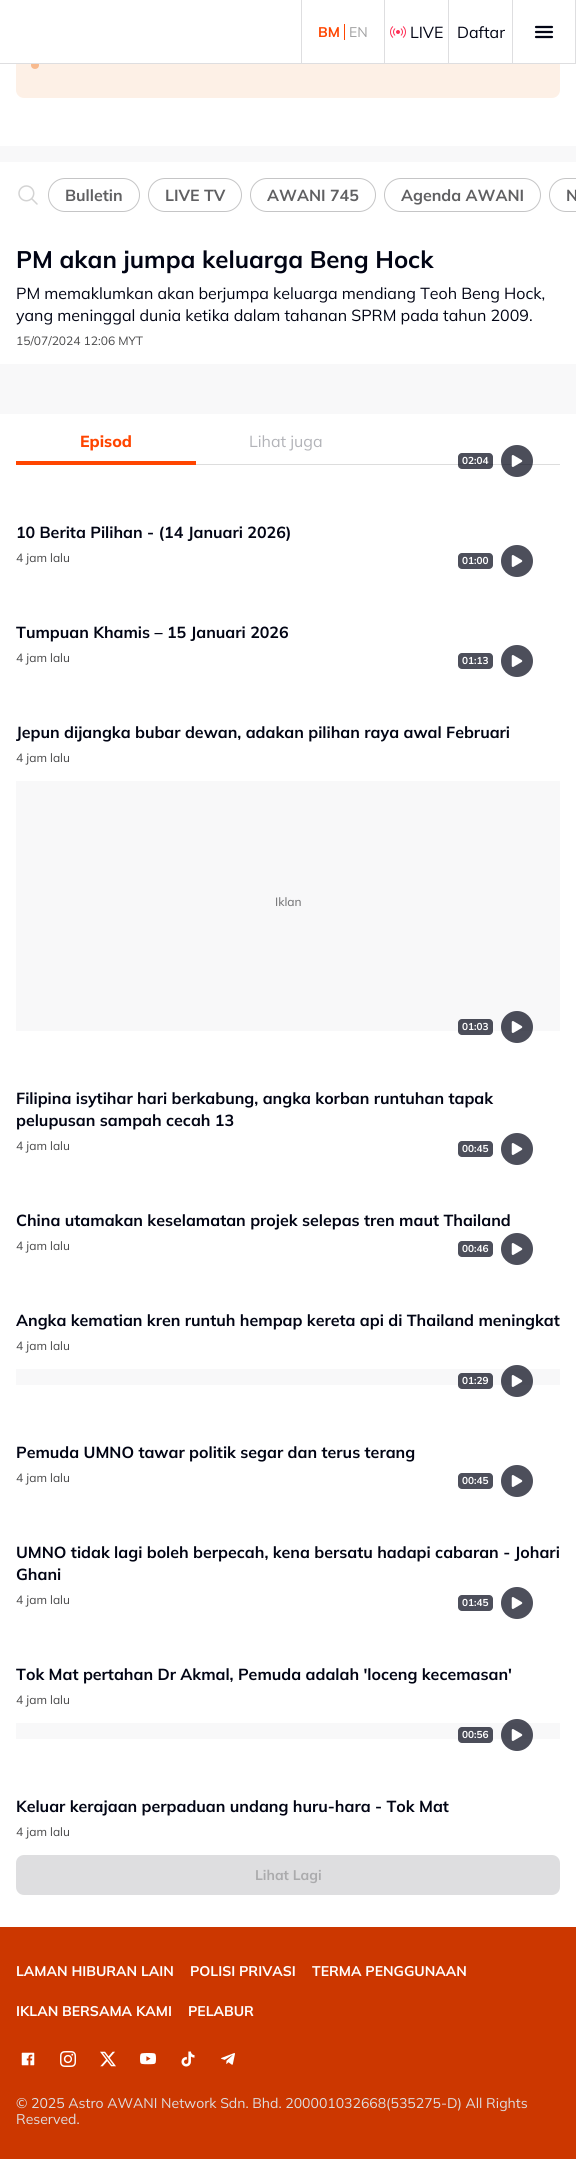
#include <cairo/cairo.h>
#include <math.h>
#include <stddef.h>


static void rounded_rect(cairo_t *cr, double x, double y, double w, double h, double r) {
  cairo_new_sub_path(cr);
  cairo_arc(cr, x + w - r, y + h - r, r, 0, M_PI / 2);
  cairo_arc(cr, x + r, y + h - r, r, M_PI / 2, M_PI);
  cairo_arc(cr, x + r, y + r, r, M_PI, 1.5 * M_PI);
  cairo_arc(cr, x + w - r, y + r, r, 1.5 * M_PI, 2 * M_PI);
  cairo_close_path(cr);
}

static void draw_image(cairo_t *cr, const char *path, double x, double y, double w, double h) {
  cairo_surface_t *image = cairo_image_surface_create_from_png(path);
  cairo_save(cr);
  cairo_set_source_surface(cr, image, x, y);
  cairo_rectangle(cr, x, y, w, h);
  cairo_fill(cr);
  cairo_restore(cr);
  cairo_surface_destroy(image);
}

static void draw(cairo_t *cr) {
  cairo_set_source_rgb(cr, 1, 1, 1);
  cairo_paint(cr);
  cairo_set_source_rgb(cr, 253 / 255.0, 240 / 255.0, 230 / 255.0);
  rounded_rect(cr, 16, 3, 544, 95, 8);
  cairo_fill(cr);
  cairo_set_source_rgb(cr, 248 / 255.0, 186 / 255.0, 142 / 255.0);
  cairo_arc(cr, 35, 65, 4, 0, 2 * M_PI);
  cairo_fill(cr);
  cairo_set_source_rgb(cr, 1, 1, 1);
  cairo_rectangle(cr, 16, 3, 544, 60);
  cairo_fill(cr);
  cairo_set_source_rgb(cr, 222 / 255.0, 222 / 255.0, 224 / 255.0);
  cairo_rectangle(cr, 0, 63, 576, 1);
  cairo_fill(cr);
  cairo_rectangle(cr, 301, 0, 1, 63);
  cairo_fill(cr);
  cairo_set_source_rgb(cr, 1, 69 / 255.0, 0);
  cairo_rectangle(cr, 344, 24, 1, 16);
  cairo_fill(cr);
  cairo_set_source_rgb(cr, 222 / 255.0, 222 / 255.0, 224 / 255.0);
  cairo_rectangle(cr, 384, 0, 1, 63);
  cairo_fill(cr);
  draw_image(cr, "images/1.png", 390, 26, 16, 12);
  cairo_rectangle(cr, 448, 0, 1, 63);
  cairo_fill(cr);
  cairo_rectangle(cr, 575, 0, 1, 63);
  cairo_fill(cr);
  cairo_rectangle(cr, 512, 0, 1, 63);
  cairo_fill(cr);
  cairo_new_path(cr);
  cairo_move_to(cr, 536, 27);
  cairo_line_to(cr, 552, 27);
  cairo_move_to(cr, 536, 32);
  cairo_line_to(cr, 552, 32);
  cairo_move_to(cr, 536, 37);
  cairo_line_to(cr, 552, 37);
  cairo_set_source_rgb(cr, 1 / 255.0, 4 / 255.0, 20 / 255.0);
  cairo_set_line_width(cr, 2.2);
  cairo_set_line_cap(cr, CAIRO_LINE_CAP_ROUND);
  cairo_stroke(cr);
  cairo_set_source_rgb(cr, 248 / 255.0, 248 / 255.0, 249 / 255.0);
  cairo_rectangle(cr, 0, 146, 576, 16);
  cairo_fill(cr);
  draw_image(cr, "images/2.png", 18, 185, 20, 20);
  rounded_rect(cr, 48.5, 178.5, 91, 33, 16.5);
  cairo_set_source_rgb(cr, 197 / 255.0, 197 / 255.0, 198 / 255.0);
  cairo_set_line_width(cr, 1);
  cairo_set_line_cap(cr, CAIRO_LINE_CAP_BUTT);
  cairo_stroke(cr);
  rounded_rect(cr, 148.5, 178.5, 93, 33, 16.5);
  cairo_stroke(cr);
  rounded_rect(cr, 250.5, 178.5, 125, 33, 16.5);
  cairo_stroke(cr);
  rounded_rect(cr, 384.5, 178.5, 156, 33, 16.5);
  cairo_stroke(cr);
  rounded_rect(cr, 549.5, 178.5, 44, 33, 16.5);
  cairo_stroke(cr);
  cairo_set_source_rgb(cr, 248 / 255.0, 248 / 255.0, 249 / 255.0);
  cairo_rectangle(cr, 0, 364, 576, 50);
  cairo_fill(cr);
  cairo_set_source_rgb(cr, 221 / 255.0, 221 / 255.0, 221 / 255.0);
  cairo_rectangle(cr, 196, 464, 364, 1);
  cairo_fill(cr);
  cairo_set_source_rgb(cr, 1, 69 / 255.0, 0);
  cairo_rectangle(cr, 16, 461, 180, 4);
  cairo_fill(cr);
  cairo_set_source_rgba(cr, 1 / 255.0, 4 / 255.0, 20 / 255.0, 0.7);
  rounded_rect(cr, 458, 453, 35, 16, 4);
  cairo_fill(cr);
  cairo_arc(cr, 517, 461, 16, 0, 2 * M_PI);
  cairo_fill(cr);
  draw_image(cr, "images/3.png", 511, 455, 12, 12);
  cairo_set_source_rgb(cr, 77 / 255.0, 79 / 255.0, 91 / 255.0);
  rounded_rect(cr, 458, 553, 35, 16, 4);
  cairo_fill(cr);
  cairo_arc(cr, 517, 561, 16, 0, 2 * M_PI);
  cairo_fill(cr);
  draw_image(cr, "images/4.png", 511, 555, 12, 12);
  rounded_rect(cr, 458, 653, 35, 16, 4);
  cairo_fill(cr);
  cairo_arc(cr, 517, 661, 16, 0, 2 * M_PI);
  cairo_fill(cr);
  draw_image(cr, "images/4.png", 511, 655, 12, 12);
  cairo_set_source_rgb(cr, 248 / 255.0, 248 / 255.0, 249 / 255.0);
  cairo_rectangle(cr, 16, 781, 544, 250);
  cairo_fill(cr);
  cairo_set_source_rgba(cr, 1 / 255.0, 4 / 255.0, 20 / 255.0, 0.7);
  rounded_rect(cr, 458, 1019, 35, 16, 4);
  cairo_fill(cr);
  cairo_arc(cr, 517, 1027, 16, 0, 2 * M_PI);
  cairo_fill(cr);
  draw_image(cr, "images/5.png", 511, 1021, 12, 12);
  cairo_set_source_rgb(cr, 77 / 255.0, 79 / 255.0, 91 / 255.0);
  rounded_rect(cr, 458, 1141, 35, 16, 4);
  cairo_fill(cr);
  cairo_arc(cr, 517, 1149, 16, 0, 2 * M_PI);
  cairo_fill(cr);
  draw_image(cr, "images/4.png", 511, 1143, 12, 12);
  rounded_rect(cr, 458, 1241, 35, 16, 4);
  cairo_fill(cr);
  cairo_arc(cr, 517, 1249, 16, 0, 2 * M_PI);
  cairo_fill(cr);
  draw_image(cr, "images/4.png", 511, 1243, 12, 12);
  cairo_set_source_rgb(cr, 248 / 255.0, 248 / 255.0, 249 / 255.0);
  cairo_rectangle(cr, 16, 1369, 544, 16);
  cairo_fill(cr);
  cairo_set_source_rgba(cr, 1 / 255.0, 4 / 255.0, 20 / 255.0, 0.7);
  rounded_rect(cr, 458, 1373, 35, 16, 4);
  cairo_fill(cr);
  cairo_arc(cr, 517, 1381, 16, 0, 2 * M_PI);
  cairo_fill(cr);
  draw_image(cr, "images/5.png", 511, 1375, 12, 12);
  cairo_set_source_rgb(cr, 77 / 255.0, 79 / 255.0, 91 / 255.0);
  rounded_rect(cr, 458, 1473, 35, 16, 4);
  cairo_fill(cr);
  cairo_arc(cr, 517, 1481, 16, 0, 2 * M_PI);
  cairo_fill(cr);
  draw_image(cr, "images/4.png", 511, 1475, 12, 12);
  rounded_rect(cr, 458, 1595, 35, 16, 4);
  cairo_fill(cr);
  cairo_arc(cr, 517, 1603, 16, 0, 2 * M_PI);
  cairo_fill(cr);
  draw_image(cr, "images/4.png", 511, 1597, 12, 12);
  cairo_set_source_rgb(cr, 248 / 255.0, 248 / 255.0, 249 / 255.0);
  cairo_rectangle(cr, 16, 1723, 544, 16);
  cairo_fill(cr);
  cairo_set_source_rgba(cr, 1 / 255.0, 4 / 255.0, 20 / 255.0, 0.7);
  rounded_rect(cr, 458, 1727, 35, 16, 4);
  cairo_fill(cr);
  cairo_arc(cr, 517, 1735, 16, 0, 2 * M_PI);
  cairo_fill(cr);
  draw_image(cr, "images/5.png", 511, 1729, 12, 12);
  cairo_set_source_rgb(cr, 222 / 255.0, 222 / 255.0, 224 / 255.0);
  rounded_rect(cr, 16, 1855, 544, 40, 8);
  cairo_fill(cr);
  cairo_set_source_rgb(cr, 204 / 255.0, 55 / 255.0, 0);
  cairo_rectangle(cr, 0, 1927, 576, 232);
  cairo_fill(cr);
  draw_image(cr, "images/6.png", 21, 2052, 14, 14);
  draw_image(cr, "images/7.png", 60, 2051, 16, 16);
  draw_image(cr, "images/8.png", 100, 2051, 16, 16);
  draw_image(cr, "images/9.png", 140, 2053, 16, 12);
  draw_image(cr, "images/10.png", 181, 2051, 14, 16);
  draw_image(cr, "images/11.png", 221, 2053, 14, 12);
  cairo_select_font_face(cr, "Mulish", CAIRO_FONT_SLANT_NORMAL, CAIRO_FONT_WEIGHT_BOLD);
  cairo_set_font_size(cr, 14);
  cairo_set_source_rgb(cr, 1, 69 / 255.0, 0);
  cairo_move_to(cr, 318, 37);
  cairo_show_text(cr, "BM");
  cairo_select_font_face(cr, "Mulish", CAIRO_FONT_SLANT_NORMAL, CAIRO_FONT_WEIGHT_NORMAL);
  cairo_set_source_rgb(cr, 160 / 255.0, 160 / 255.0, 161 / 255.0);
  cairo_move_to(cr, 349, 37);
  cairo_show_text(cr, "EN");
  cairo_set_font_size(cr, 16);
  cairo_set_source_rgb(cr, 1 / 255.0, 4 / 255.0, 20 / 255.0);
  cairo_move_to(cr, 410, 38);
  cairo_show_text(cr, "LIVE");
  cairo_move_to(cr, 457, 38);
  cairo_show_text(cr, "Daftar");
  cairo_select_font_face(cr, "Mulish", CAIRO_FONT_SLANT_NORMAL, CAIRO_FONT_WEIGHT_BOLD);
  cairo_set_source_rgb(cr, 96 / 255.0, 96 / 255.0, 98 / 255.0);
  cairo_move_to(cr, 65, 201);
  cairo_show_text(cr, "Bulletin");
  cairo_move_to(cr, 165, 201);
  cairo_show_text(cr, "LIVE TV");
  cairo_move_to(cr, 267, 201);
  cairo_show_text(cr, "AWANI 745");
  cairo_move_to(cr, 401, 201);
  cairo_show_text(cr, "Agenda AWANI");
  cairo_move_to(cr, 566, 201);
  cairo_show_text(cr, "N");
  cairo_set_font_size(cr, 24);
  cairo_set_source_rgb(cr, 1 / 255.0, 4 / 255.0, 20 / 255.0);
  cairo_move_to(cr, 16, 268);
  cairo_show_text(cr, "PM akan jumpa keluarga Beng Hock");
  cairo_select_font_face(cr, "Mulish", CAIRO_FONT_SLANT_NORMAL, CAIRO_FONT_WEIGHT_NORMAL);
  cairo_set_font_size(cr, 16);
  cairo_move_to(cr, 16, 299);
  cairo_show_text(cr, "PM memaklumkan akan berjumpa keluarga mendiang Teoh Beng Hock,");
  cairo_move_to(cr, 16, 321);
  cairo_show_text(cr, "yang meninggal dunia ketika dalam tahanan SPRM pada tahun 2009.");
  cairo_set_font_size(cr, 12);
  cairo_set_source_rgb(cr, 72 / 255.0, 72 / 255.0, 73 / 255.0);
  cairo_move_to(cr, 16, 345);
  cairo_show_text(cr, "15/07/2024 12:06 MYT");
  cairo_select_font_face(cr, "Mulish ExtraBold", CAIRO_FONT_SLANT_NORMAL, CAIRO_FONT_WEIGHT_NORMAL);
  cairo_set_font_size(cr, 16);
  cairo_set_source_rgb(cr, 1, 69 / 255.0, 0);
  cairo_move_to(cr, 80, 447);
  cairo_show_text(cr, "Episod");
  cairo_select_font_face(cr, "Mulish", CAIRO_FONT_SLANT_NORMAL, CAIRO_FONT_WEIGHT_NORMAL);
  cairo_set_source_rgb(cr, 178 / 255.0, 179 / 255.0, 184 / 255.0);
  cairo_move_to(cr, 249, 447);
  cairo_show_text(cr, "Lihat juga");
  cairo_select_font_face(cr, "Mulish", CAIRO_FONT_SLANT_NORMAL, CAIRO_FONT_WEIGHT_BOLD);
  cairo_set_font_size(cr, 10);
  cairo_set_source_rgb(cr, 1, 1, 1);
  cairo_move_to(cr, 462, 464);
  cairo_show_text(cr, "02:04");
  cairo_set_font_size(cr, 16);
  cairo_set_source_rgb(cr, 1 / 255.0, 4 / 255.0, 20 / 255.0);
  cairo_move_to(cr, 16, 538);
  cairo_show_text(cr, "10 Berita Pilihan - (14 Januari 2026)");
  cairo_select_font_face(cr, "Mulish", CAIRO_FONT_SLANT_NORMAL, CAIRO_FONT_WEIGHT_NORMAL);
  cairo_set_font_size(cr, 12);
  cairo_set_source_rgb(cr, 72 / 255.0, 72 / 255.0, 73 / 255.0);
  cairo_move_to(cr, 16, 562);
  cairo_show_text(cr, "4 jam lalu");
  cairo_select_font_face(cr, "Mulish", CAIRO_FONT_SLANT_NORMAL, CAIRO_FONT_WEIGHT_BOLD);
  cairo_set_font_size(cr, 10);
  cairo_set_source_rgb(cr, 1, 1, 1);
  cairo_move_to(cr, 462, 564);
  cairo_show_text(cr, "01:00");
  cairo_set_font_size(cr, 16);
  cairo_set_source_rgb(cr, 1 / 255.0, 4 / 255.0, 20 / 255.0);
  cairo_move_to(cr, 16, 638);
  cairo_show_text(cr, "Tumpuan Khamis – 15 Januari 2026");
  cairo_select_font_face(cr, "Mulish", CAIRO_FONT_SLANT_NORMAL, CAIRO_FONT_WEIGHT_NORMAL);
  cairo_set_font_size(cr, 12);
  cairo_set_source_rgb(cr, 72 / 255.0, 72 / 255.0, 73 / 255.0);
  cairo_move_to(cr, 16, 662);
  cairo_show_text(cr, "4 jam lalu");
  cairo_select_font_face(cr, "Mulish", CAIRO_FONT_SLANT_NORMAL, CAIRO_FONT_WEIGHT_BOLD);
  cairo_set_font_size(cr, 10);
  cairo_set_source_rgb(cr, 1, 1, 1);
  cairo_move_to(cr, 462, 664);
  cairo_show_text(cr, "01:13");
  cairo_set_font_size(cr, 16);
  cairo_set_source_rgb(cr, 1 / 255.0, 4 / 255.0, 20 / 255.0);
  cairo_move_to(cr, 16, 738);
  cairo_show_text(cr, "Jepun dijangka bubar dewan, adakan pilihan raya awal Februari");
  cairo_select_font_face(cr, "Mulish", CAIRO_FONT_SLANT_NORMAL, CAIRO_FONT_WEIGHT_NORMAL);
  cairo_set_font_size(cr, 12);
  cairo_set_source_rgb(cr, 72 / 255.0, 72 / 255.0, 73 / 255.0);
  cairo_move_to(cr, 16, 762);
  cairo_show_text(cr, "4 jam lalu");
  cairo_select_font_face(cr, "Mulish Medium", CAIRO_FONT_SLANT_NORMAL, CAIRO_FONT_WEIGHT_NORMAL);
  cairo_set_source_rgb(cr, 120 / 255.0, 120 / 255.0, 122 / 255.0);
  cairo_move_to(cr, 275, 906);
  cairo_show_text(cr, "Iklan");
  cairo_select_font_face(cr, "Mulish", CAIRO_FONT_SLANT_NORMAL, CAIRO_FONT_WEIGHT_BOLD);
  cairo_set_font_size(cr, 10);
  cairo_set_source_rgb(cr, 1, 1, 1);
  cairo_move_to(cr, 462, 1030);
  cairo_show_text(cr, "01:03");
  cairo_set_font_size(cr, 16);
  cairo_set_source_rgb(cr, 1 / 255.0, 4 / 255.0, 20 / 255.0);
  cairo_move_to(cr, 16, 1104);
  cairo_show_text(cr, "Filipina isytihar hari berkabung, angka korban runtuhan tapak");
  cairo_move_to(cr, 16, 1126);
  cairo_show_text(cr, "pelupusan sampah cecah 13");
  cairo_select_font_face(cr, "Mulish", CAIRO_FONT_SLANT_NORMAL, CAIRO_FONT_WEIGHT_NORMAL);
  cairo_set_font_size(cr, 12);
  cairo_set_source_rgb(cr, 72 / 255.0, 72 / 255.0, 73 / 255.0);
  cairo_move_to(cr, 16, 1150);
  cairo_show_text(cr, "4 jam lalu");
  cairo_select_font_face(cr, "Mulish", CAIRO_FONT_SLANT_NORMAL, CAIRO_FONT_WEIGHT_BOLD);
  cairo_set_font_size(cr, 10);
  cairo_set_source_rgb(cr, 1, 1, 1);
  cairo_move_to(cr, 462, 1152);
  cairo_show_text(cr, "00:45");
  cairo_set_font_size(cr, 16);
  cairo_set_source_rgb(cr, 1 / 255.0, 4 / 255.0, 20 / 255.0);
  cairo_move_to(cr, 16, 1226);
  cairo_show_text(cr, "China utamakan keselamatan projek selepas tren maut Thailand");
  cairo_select_font_face(cr, "Mulish", CAIRO_FONT_SLANT_NORMAL, CAIRO_FONT_WEIGHT_NORMAL);
  cairo_set_font_size(cr, 12);
  cairo_set_source_rgb(cr, 72 / 255.0, 72 / 255.0, 73 / 255.0);
  cairo_move_to(cr, 16, 1250);
  cairo_show_text(cr, "4 jam lalu");
  cairo_select_font_face(cr, "Mulish", CAIRO_FONT_SLANT_NORMAL, CAIRO_FONT_WEIGHT_BOLD);
  cairo_set_font_size(cr, 10);
  cairo_set_source_rgb(cr, 1, 1, 1);
  cairo_move_to(cr, 462, 1252);
  cairo_show_text(cr, "00:46");
  cairo_set_font_size(cr, 16);
  cairo_set_source_rgb(cr, 1 / 255.0, 4 / 255.0, 20 / 255.0);
  cairo_move_to(cr, 16, 1326);
  cairo_show_text(cr, "Angka kematian kren runtuh hempap kereta api di Thailand meningkat");
  cairo_select_font_face(cr, "Mulish", CAIRO_FONT_SLANT_NORMAL, CAIRO_FONT_WEIGHT_NORMAL);
  cairo_set_font_size(cr, 12);
  cairo_set_source_rgb(cr, 72 / 255.0, 72 / 255.0, 73 / 255.0);
  cairo_move_to(cr, 16, 1350);
  cairo_show_text(cr, "4 jam lalu");
  cairo_select_font_face(cr, "Mulish", CAIRO_FONT_SLANT_NORMAL, CAIRO_FONT_WEIGHT_BOLD);
  cairo_set_font_size(cr, 10);
  cairo_set_source_rgb(cr, 1, 1, 1);
  cairo_move_to(cr, 462, 1384);
  cairo_show_text(cr, "01:29");
  cairo_set_font_size(cr, 16);
  cairo_set_source_rgb(cr, 1 / 255.0, 4 / 255.0, 20 / 255.0);
  cairo_move_to(cr, 16, 1458);
  cairo_show_text(cr, "Pemuda UMNO tawar politik segar dan terus terang");
  cairo_select_font_face(cr, "Mulish", CAIRO_FONT_SLANT_NORMAL, CAIRO_FONT_WEIGHT_NORMAL);
  cairo_set_font_size(cr, 12);
  cairo_set_source_rgb(cr, 72 / 255.0, 72 / 255.0, 73 / 255.0);
  cairo_move_to(cr, 16, 1482);
  cairo_show_text(cr, "4 jam lalu");
  cairo_select_font_face(cr, "Mulish", CAIRO_FONT_SLANT_NORMAL, CAIRO_FONT_WEIGHT_BOLD);
  cairo_set_font_size(cr, 10);
  cairo_set_source_rgb(cr, 1, 1, 1);
  cairo_move_to(cr, 462, 1484);
  cairo_show_text(cr, "00:45");
  cairo_set_font_size(cr, 16);
  cairo_set_source_rgb(cr, 1 / 255.0, 4 / 255.0, 20 / 255.0);
  cairo_move_to(cr, 16, 1558);
  cairo_show_text(cr, "UMNO tidak lagi boleh berpecah, kena bersatu hadapi cabaran - Johari");
  cairo_move_to(cr, 16, 1580);
  cairo_show_text(cr, "Ghani");
  cairo_select_font_face(cr, "Mulish", CAIRO_FONT_SLANT_NORMAL, CAIRO_FONT_WEIGHT_NORMAL);
  cairo_set_font_size(cr, 12);
  cairo_set_source_rgb(cr, 72 / 255.0, 72 / 255.0, 73 / 255.0);
  cairo_move_to(cr, 16, 1604);
  cairo_show_text(cr, "4 jam lalu");
  cairo_select_font_face(cr, "Mulish", CAIRO_FONT_SLANT_NORMAL, CAIRO_FONT_WEIGHT_BOLD);
  cairo_set_font_size(cr, 10);
  cairo_set_source_rgb(cr, 1, 1, 1);
  cairo_move_to(cr, 462, 1606);
  cairo_show_text(cr, "01:45");
  cairo_set_font_size(cr, 16);
  cairo_set_source_rgb(cr, 1 / 255.0, 4 / 255.0, 20 / 255.0);
  cairo_move_to(cr, 16, 1680);
  cairo_show_text(cr, "Tok Mat pertahan Dr Akmal, Pemuda adalah 'loceng kecemasan'");
  cairo_select_font_face(cr, "Mulish", CAIRO_FONT_SLANT_NORMAL, CAIRO_FONT_WEIGHT_NORMAL);
  cairo_set_font_size(cr, 12);
  cairo_set_source_rgb(cr, 72 / 255.0, 72 / 255.0, 73 / 255.0);
  cairo_move_to(cr, 16, 1704);
  cairo_show_text(cr, "4 jam lalu");
  cairo_select_font_face(cr, "Mulish", CAIRO_FONT_SLANT_NORMAL, CAIRO_FONT_WEIGHT_BOLD);
  cairo_set_font_size(cr, 10);
  cairo_set_source_rgb(cr, 1, 1, 1);
  cairo_move_to(cr, 462, 1738);
  cairo_show_text(cr, "00:56");
  cairo_set_font_size(cr, 16);
  cairo_set_source_rgb(cr, 1 / 255.0, 4 / 255.0, 20 / 255.0);
  cairo_move_to(cr, 16, 1812);
  cairo_show_text(cr, "Keluar kerajaan perpaduan undang huru-hara - Tok Mat");
  cairo_select_font_face(cr, "Mulish", CAIRO_FONT_SLANT_NORMAL, CAIRO_FONT_WEIGHT_NORMAL);
  cairo_set_font_size(cr, 12);
  cairo_set_source_rgb(cr, 72 / 255.0, 72 / 255.0, 73 / 255.0);
  cairo_move_to(cr, 16, 1836);
  cairo_show_text(cr, "4 jam lalu");
  cairo_select_font_face(cr, "Mulish", CAIRO_FONT_SLANT_NORMAL, CAIRO_FONT_WEIGHT_BOLD);
  cairo_set_font_size(cr, 14);
  cairo_set_source_rgb(cr, 171 / 255.0, 171 / 255.0, 173 / 255.0);
  cairo_move_to(cr, 255, 1880);
  cairo_show_text(cr, "Lihat Lagi");
  cairo_set_source_rgb(cr, 1, 1, 1);
  cairo_move_to(cr, 16, 1976);
  cairo_show_text(cr, "LAMAN HIBURAN LAIN");
  cairo_move_to(cr, 190, 1976);
  cairo_show_text(cr, "POLISI PRIVASI");
  cairo_move_to(cr, 312, 1976);
  cairo_show_text(cr, "TERMA PENGGUNAAN");
  cairo_move_to(cr, 16, 2016);
  cairo_show_text(cr, "IKLAN BERSAMA KAMI");
  cairo_move_to(cr, 188, 2016);
  cairo_show_text(cr, "PELABUR");
  cairo_select_font_face(cr, "Mulish", CAIRO_FONT_SLANT_NORMAL, CAIRO_FONT_WEIGHT_NORMAL);
  cairo_set_source_rgb(cr, 222 / 255.0, 222 / 255.0, 224 / 255.0);
  cairo_move_to(cr, 16, 2108);
  cairo_show_text(cr, "© 2025 Astro AWANI Network Sdn. Bhd. 200001032668(535275-D) All Rights");
  cairo_move_to(cr, 16, 2124);
  cairo_show_text(cr, "Reserved.");
}

int main(void) {
  cairo_surface_t *surface = cairo_image_surface_create(CAIRO_FORMAT_RGB24, 576, 2159);
  cairo_t *cr = cairo_create(surface);
  cairo_font_options_t *options = cairo_font_options_create();
  cairo_font_options_set_hint_metrics(options, CAIRO_HINT_METRICS_OFF);
  cairo_font_options_set_hint_style(options, CAIRO_HINT_STYLE_NONE);
  cairo_set_font_options(cr, options);
  cairo_set_miter_limit(cr, 4);
  draw(cr);
  cairo_surface_write_to_png(surface, "out.png");
  cairo_font_options_destroy(options);
  cairo_destroy(cr);
  cairo_surface_destroy(surface);
  return 0;
}
